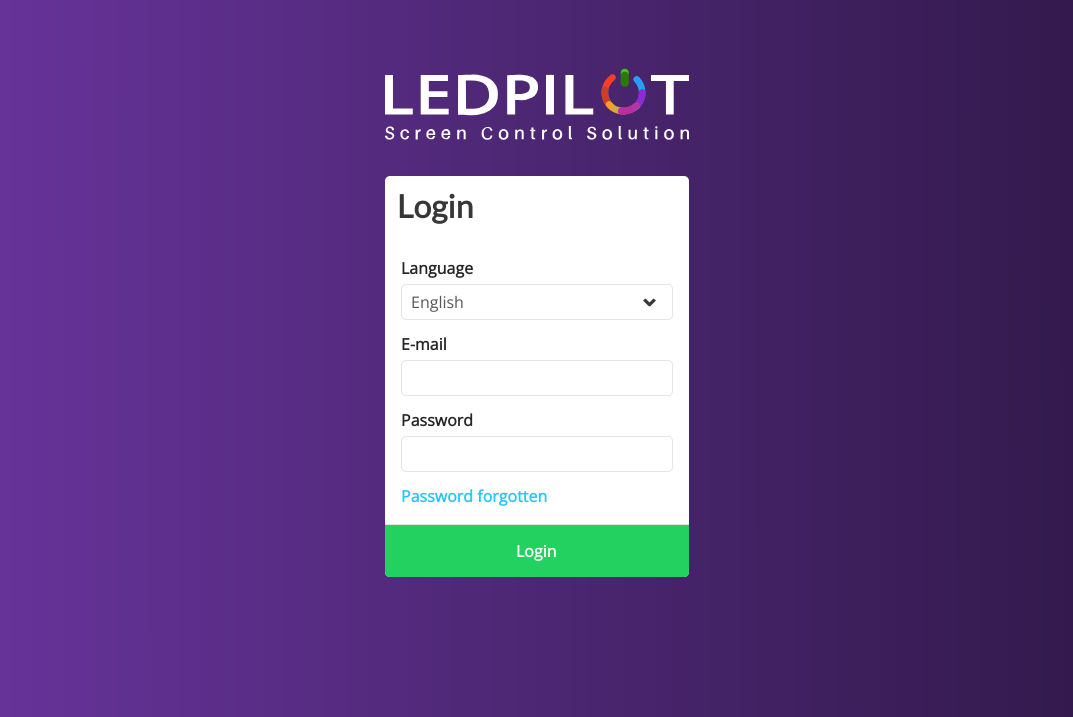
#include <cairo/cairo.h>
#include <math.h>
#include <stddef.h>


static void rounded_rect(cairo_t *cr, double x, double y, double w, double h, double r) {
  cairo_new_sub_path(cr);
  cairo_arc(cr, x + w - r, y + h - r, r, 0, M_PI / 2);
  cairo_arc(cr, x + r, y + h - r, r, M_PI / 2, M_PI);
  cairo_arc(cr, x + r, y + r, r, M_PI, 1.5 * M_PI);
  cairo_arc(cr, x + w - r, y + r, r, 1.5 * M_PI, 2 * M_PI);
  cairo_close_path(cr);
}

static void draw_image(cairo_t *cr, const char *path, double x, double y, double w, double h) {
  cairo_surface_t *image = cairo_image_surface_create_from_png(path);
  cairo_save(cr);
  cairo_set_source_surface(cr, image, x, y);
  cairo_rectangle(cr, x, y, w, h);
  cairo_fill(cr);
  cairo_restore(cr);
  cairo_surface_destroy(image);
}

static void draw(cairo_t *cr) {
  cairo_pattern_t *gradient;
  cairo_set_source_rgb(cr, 1, 1, 1);
  cairo_paint(cr);
  gradient = cairo_pattern_create_linear(0, 359, 1073, 358);
  cairo_pattern_add_color_stop_rgba(gradient, 0, 102 / 255.0, 51 / 255.0, 153 / 255.0, 1);
  cairo_pattern_add_color_stop_rgba(gradient, 1, 51 / 255.0, 26 / 255.0, 77 / 255.0, 1);
  cairo_set_source(cr, gradient);
  cairo_pattern_destroy(gradient);
  cairo_rectangle(cr, 0, 0, 1073, 717);
  cairo_fill(cr);
  draw_image(cr, "images/1.png", 385, 68, 304, 72);
  cairo_set_source_rgb(cr, 1, 1, 1);
  rounded_rect(cr, 385, 176, 304, 401, 5);
  cairo_fill(cr);
  rounded_rect(cr, 401.5, 284.5, 271, 35, 4.5);
  cairo_set_source_rgb(cr, 228 / 255.0, 228 / 255.0, 228 / 255.0);
  cairo_set_line_width(cr, 1);
  cairo_stroke(cr);
  cairo_set_source_rgb(cr, 55 / 255.0, 55 / 255.0, 55 / 255.0);
  cairo_new_path(cr);
  cairo_move_to(cr, 648, 304);
  cairo_line_to(cr, 653.5, 298.5);
  cairo_line_to(cr, 656, 300.5);
  cairo_line_to(cr, 650, 306.5);
  cairo_close_path(cr);
  cairo_fill(cr);
  cairo_new_path(cr);
  cairo_move_to(cr, 643, 300.5);
  cairo_line_to(cr, 645.5, 298.5);
  cairo_line_to(cr, 651, 304);
  cairo_line_to(cr, 649, 306.5);
  cairo_close_path(cr);
  cairo_fill(cr);
  rounded_rect(cr, 401.5, 360.5, 271, 35, 4.5);
  cairo_set_source_rgb(cr, 228 / 255.0, 228 / 255.0, 228 / 255.0);
  cairo_stroke(cr);
  rounded_rect(cr, 401.5, 436.5, 271, 35, 4.5);
  cairo_stroke(cr);
  cairo_rectangle(cr, 385, 524, 304, 1);
  cairo_fill(cr);
  cairo_set_source_rgb(cr, 35 / 255.0, 209 / 255.0, 96 / 255.0);
  cairo_new_path(cr);
  cairo_move_to(cr, 385, 525);
  cairo_line_to(cr, 689, 525);
  cairo_line_to(cr, 689, 572);
  cairo_curve_to(cr, 689, 575, 687, 577, 684, 577);
  cairo_line_to(cr, 390, 577);
  cairo_curve_to(cr, 387, 577, 385, 575, 385, 572);
  cairo_close_path(cr);
  cairo_fill(cr);
  cairo_select_font_face(cr, "Lato", CAIRO_FONT_SLANT_NORMAL, CAIRO_FONT_WEIGHT_BOLD);
  cairo_set_font_size(cr, 32);
  cairo_set_source_rgb(cr, 55 / 255.0, 55 / 255.0, 55 / 255.0);
  cairo_move_to(cr, 397, 218);
  cairo_show_text(cr, "Login");
  cairo_select_font_face(cr, "Open Sans", CAIRO_FONT_SLANT_NORMAL, CAIRO_FONT_WEIGHT_BOLD);
  cairo_set_font_size(cr, 16);
  cairo_set_source_rgb(cr, 37 / 255.0, 37 / 255.0, 37 / 255.0);
  cairo_move_to(cr, 401, 274);
  cairo_show_text(cr, "Language");
  cairo_select_font_face(cr, "Open Sans", CAIRO_FONT_SLANT_NORMAL, CAIRO_FONT_WEIGHT_NORMAL);
  cairo_set_source_rgb(cr, 88 / 255.0, 88 / 255.0, 88 / 255.0);
  cairo_move_to(cr, 411, 308);
  cairo_show_text(cr, "English");
  cairo_select_font_face(cr, "Open Sans", CAIRO_FONT_SLANT_NORMAL, CAIRO_FONT_WEIGHT_BOLD);
  cairo_set_source_rgb(cr, 37 / 255.0, 37 / 255.0, 37 / 255.0);
  cairo_move_to(cr, 401, 350);
  cairo_show_text(cr, "E-mail");
  cairo_move_to(cr, 401, 426);
  cairo_show_text(cr, "Password");
  cairo_set_source_rgb(cr, 38 / 255.0, 197 / 255.0, 253 / 255.0);
  cairo_move_to(cr, 401, 502);
  cairo_show_text(cr, "Password forgotten");
  cairo_set_source_rgb(cr, 1, 1, 1);
  cairo_move_to(cr, 516, 557);
  cairo_show_text(cr, "Login");
}

int main(void) {
  cairo_surface_t *surface = cairo_image_surface_create(CAIRO_FORMAT_RGB24, 1073, 717);
  cairo_t *cr = cairo_create(surface);
  cairo_font_options_t *options = cairo_font_options_create();
  cairo_font_options_set_hint_metrics(options, CAIRO_HINT_METRICS_OFF);
  cairo_font_options_set_hint_style(options, CAIRO_HINT_STYLE_NONE);
  cairo_set_font_options(cr, options);
  cairo_set_miter_limit(cr, 4);
  draw(cr);
  cairo_surface_write_to_png(surface, "out.png");
  cairo_font_options_destroy(options);
  cairo_destroy(cr);
  cairo_surface_destroy(surface);
  return 0;
}
